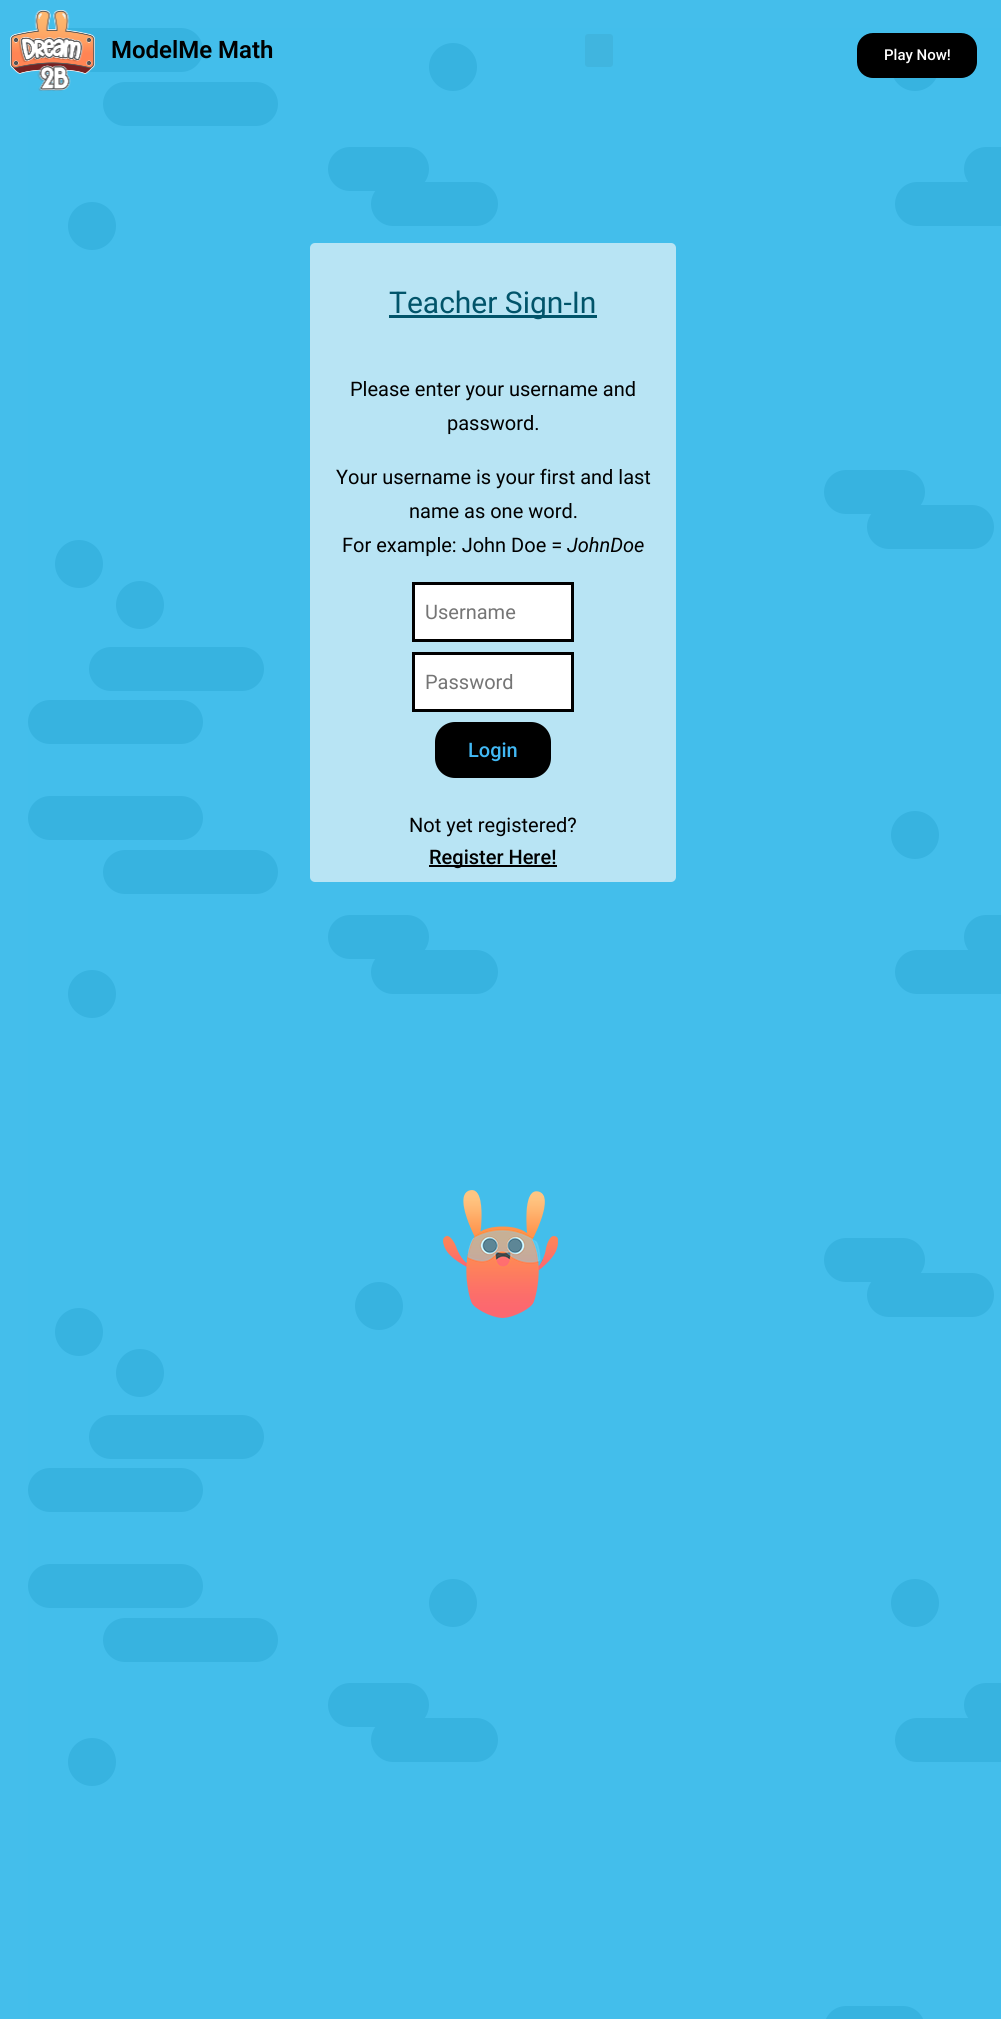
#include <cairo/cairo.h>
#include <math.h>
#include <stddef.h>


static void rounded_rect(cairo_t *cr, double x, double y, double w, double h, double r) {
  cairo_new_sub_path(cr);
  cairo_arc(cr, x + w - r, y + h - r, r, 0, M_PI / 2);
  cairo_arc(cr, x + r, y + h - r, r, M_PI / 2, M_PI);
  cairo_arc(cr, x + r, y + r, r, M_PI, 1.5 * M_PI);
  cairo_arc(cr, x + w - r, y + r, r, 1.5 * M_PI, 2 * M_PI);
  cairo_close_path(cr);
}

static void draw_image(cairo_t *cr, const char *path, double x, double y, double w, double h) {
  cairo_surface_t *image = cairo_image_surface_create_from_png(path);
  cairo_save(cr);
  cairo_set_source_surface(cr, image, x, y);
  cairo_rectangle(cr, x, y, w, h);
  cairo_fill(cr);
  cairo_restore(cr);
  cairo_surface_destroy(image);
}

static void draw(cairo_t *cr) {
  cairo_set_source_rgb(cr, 68 / 255.0, 190 / 255.0, 235 / 255.0);
  cairo_paint(cr);
  draw_image(cr, "images/1.png", 28, 28, 973, 1991);
  draw_image(cr, "images/2.png", 10, 10, 85, 81);
  cairo_set_source_rgb(cr, 64 / 255.0, 181 / 255.0, 223 / 255.0);
  rounded_rect(cr, 585, 34, 28, 33, 3);
  cairo_fill(cr);
  cairo_set_source_rgb(cr, 0, 0, 0);
  rounded_rect(cr, 858.5, 34.5, 117, 42, 14.5);
  cairo_fill_preserve(cr);
  cairo_set_line_width(cr, 3);
  cairo_stroke(cr);
  cairo_set_source_rgb(cr, 184 / 255.0, 228 / 255.0, 244 / 255.0);
  rounded_rect(cr, 310, 243, 366, 639, 5);
  cairo_fill(cr);
  cairo_set_source_rgb(cr, 1 / 255.0, 84 / 255.0, 106 / 255.0);
  cairo_rectangle(cr, 389, 315, 208, 3);
  cairo_fill(cr);
  cairo_set_source_rgb(cr, 1, 1, 1);
  cairo_rectangle(cr, 413.5, 583.5, 159, 57);
  cairo_fill_preserve(cr);
  cairo_set_source_rgb(cr, 0, 0, 0);
  cairo_stroke(cr);
  cairo_set_source_rgb(cr, 1, 1, 1);
  cairo_rectangle(cr, 413.5, 653.5, 159, 57);
  cairo_fill_preserve(cr);
  cairo_set_source_rgb(cr, 0, 0, 0);
  cairo_stroke(cr);
  rounded_rect(cr, 435, 722, 116, 56, 20);
  cairo_fill(cr);
  cairo_rectangle(cr, 429, 865, 128, 2);
  cairo_fill(cr);
  draw_image(cr, "images/3.png", 443, 1190, 115, 128);
  cairo_select_font_face(cr, "Roboto SemiBold", CAIRO_FONT_SLANT_NORMAL, CAIRO_FONT_WEIGHT_NORMAL);
  cairo_set_font_size(cr, 24);
  cairo_move_to(cr, 111, 58);
  cairo_show_text(cr, "ModelMe Math");
  cairo_select_font_face(cr, "Roboto Medium", CAIRO_FONT_SLANT_NORMAL, CAIRO_FONT_WEIGHT_NORMAL);
  cairo_set_font_size(cr, 15);
  cairo_set_source_rgb(cr, 1, 1, 1);
  cairo_move_to(cr, 884, 60);
  cairo_show_text(cr, "Play Now!");
  cairo_select_font_face(cr, "Roboto", CAIRO_FONT_SLANT_NORMAL, CAIRO_FONT_WEIGHT_NORMAL);
  cairo_set_font_size(cr, 30);
  cairo_set_source_rgb(cr, 1 / 255.0, 84 / 255.0, 106 / 255.0);
  cairo_move_to(cr, 389, 313);
  cairo_show_text(cr, "Teacher Sign-In");
  cairo_set_font_size(cr, 20);
  cairo_set_source_rgb(cr, 0, 0, 0);
  cairo_move_to(cr, 350, 396);
  cairo_show_text(cr, "Please enter your username and");
  cairo_move_to(cr, 447, 430);
  cairo_show_text(cr, "password.");
  cairo_move_to(cr, 336, 484);
  cairo_show_text(cr, "Your username is your first and last");
  cairo_move_to(cr, 409, 518);
  cairo_show_text(cr, "name as one word.");
  cairo_move_to(cr, 342, 552);
  cairo_show_text(cr, "For example: John Doe =");
  cairo_select_font_face(cr, "Roboto", CAIRO_FONT_SLANT_ITALIC, CAIRO_FONT_WEIGHT_NORMAL);
  cairo_move_to(cr, 567, 552);
  cairo_show_text(cr, "JohnDoe");
  cairo_select_font_face(cr, "Roboto", CAIRO_FONT_SLANT_NORMAL, CAIRO_FONT_WEIGHT_NORMAL);
  cairo_set_source_rgb(cr, 117 / 255.0, 117 / 255.0, 117 / 255.0);
  cairo_move_to(cr, 425, 619);
  cairo_show_text(cr, "Username");
  cairo_move_to(cr, 425, 689);
  cairo_show_text(cr, "Password");
  cairo_select_font_face(cr, "Roboto Medium", CAIRO_FONT_SLANT_NORMAL, CAIRO_FONT_WEIGHT_NORMAL);
  cairo_set_source_rgb(cr, 66 / 255.0, 185 / 255.0, 245 / 255.0);
  cairo_move_to(cr, 468, 757);
  cairo_show_text(cr, "Login");
  cairo_select_font_face(cr, "Roboto", CAIRO_FONT_SLANT_NORMAL, CAIRO_FONT_WEIGHT_NORMAL);
  cairo_set_source_rgb(cr, 0, 0, 0);
  cairo_move_to(cr, 409, 832);
  cairo_show_text(cr, "Not yet registered?");
  cairo_select_font_face(cr, "Roboto Medium", CAIRO_FONT_SLANT_NORMAL, CAIRO_FONT_WEIGHT_NORMAL);
  cairo_move_to(cr, 429, 864);
  cairo_show_text(cr, "Register Here!");
}

int main(void) {
  cairo_surface_t *surface = cairo_image_surface_create(CAIRO_FORMAT_RGB24, 1001, 2019);
  cairo_t *cr = cairo_create(surface);
  cairo_font_options_t *options = cairo_font_options_create();
  cairo_font_options_set_hint_metrics(options, CAIRO_HINT_METRICS_OFF);
  cairo_font_options_set_hint_style(options, CAIRO_HINT_STYLE_NONE);
  cairo_set_font_options(cr, options);
  cairo_set_miter_limit(cr, 4);
  draw(cr);
  cairo_surface_write_to_png(surface, "out.png");
  cairo_font_options_destroy(options);
  cairo_destroy(cr);
  cairo_surface_destroy(surface);
  return 0;
}
